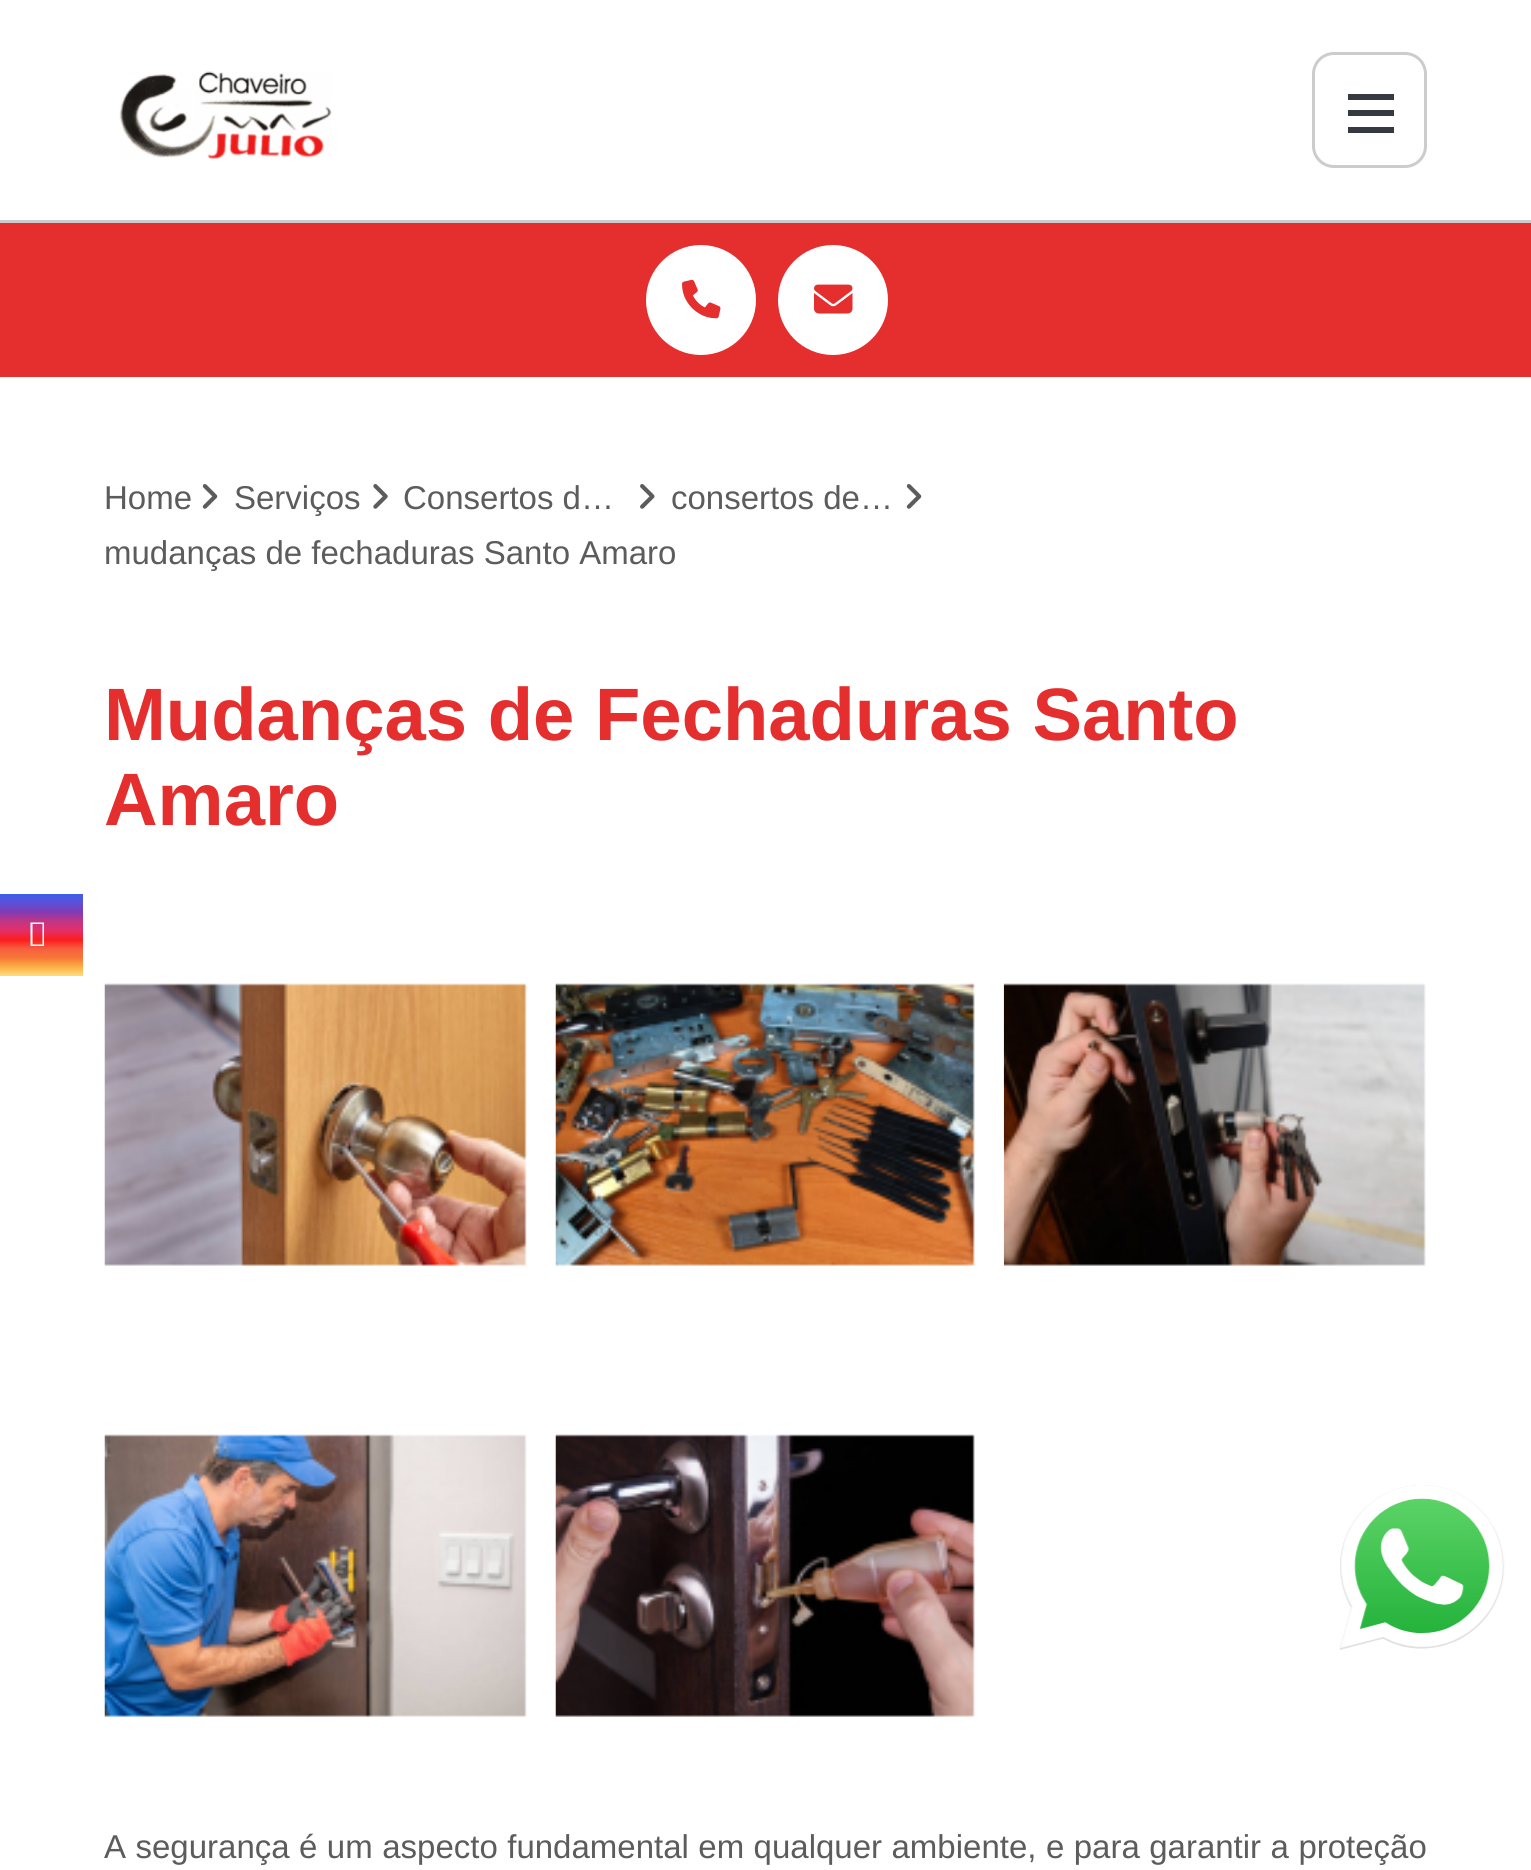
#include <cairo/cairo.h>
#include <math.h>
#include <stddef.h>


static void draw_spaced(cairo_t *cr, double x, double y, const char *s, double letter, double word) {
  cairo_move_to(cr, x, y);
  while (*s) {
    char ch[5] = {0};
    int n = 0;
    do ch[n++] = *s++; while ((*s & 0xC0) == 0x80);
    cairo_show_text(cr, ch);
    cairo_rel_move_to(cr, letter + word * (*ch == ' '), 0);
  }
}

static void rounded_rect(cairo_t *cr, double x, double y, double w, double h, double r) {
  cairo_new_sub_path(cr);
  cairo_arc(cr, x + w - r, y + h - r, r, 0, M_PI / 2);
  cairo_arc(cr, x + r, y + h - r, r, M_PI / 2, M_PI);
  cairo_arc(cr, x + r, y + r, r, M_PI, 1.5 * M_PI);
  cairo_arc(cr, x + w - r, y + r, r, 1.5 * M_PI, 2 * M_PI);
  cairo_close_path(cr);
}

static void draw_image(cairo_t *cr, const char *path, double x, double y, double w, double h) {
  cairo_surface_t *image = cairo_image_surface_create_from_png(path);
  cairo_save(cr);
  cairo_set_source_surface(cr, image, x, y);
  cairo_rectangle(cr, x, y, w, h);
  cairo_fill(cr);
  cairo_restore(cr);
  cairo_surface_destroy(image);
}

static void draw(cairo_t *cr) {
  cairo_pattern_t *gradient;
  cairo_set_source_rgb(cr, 1, 1, 1);
  cairo_paint(cr);
  cairo_set_source_rgb(cr, 204 / 255.0, 204 / 255.0, 204 / 255.0);
  cairo_rectangle(cr, 0, 220, 1531, 3);
  cairo_fill(cr);
  draw_image(cr, "images/1.png", 119, 71, 213, 88);
  rounded_rect(cr, 1313.5, 53.5, 112, 113, 20.5);
  cairo_set_line_width(cr, 3);
  cairo_stroke(cr);
  cairo_set_source_rgb(cr, 52 / 255.0, 58 / 255.0, 64 / 255.0);
  cairo_rectangle(cr, 1348, 94, 46, 6);
  cairo_fill(cr);
  cairo_rectangle(cr, 1348, 110, 46, 6);
  cairo_fill(cr);
  cairo_rectangle(cr, 1348, 127, 46, 6);
  cairo_fill(cr);
  cairo_set_source_rgb(cr, 229 / 255.0, 46 / 255.0, 46 / 255.0);
  cairo_rectangle(cr, 0, 223, 1531, 154);
  cairo_fill(cr);
  cairo_set_source_rgb(cr, 1, 1, 1);
  cairo_arc(cr, 701, 300, 55, 0, 2 * M_PI);
  cairo_fill(cr);
  draw_image(cr, "images/2.png", 682, 279, 39, 40);
  cairo_arc(cr, 833, 300, 55, 0, 2 * M_PI);
  cairo_fill(cr);
  draw_image(cr, "images/3.png", 814, 284, 39, 30);
  draw_image(cr, "images/4.png", 202, 484, 16, 25);
  draw_image(cr, "images/5.png", 373, 484, 15, 25);
  draw_image(cr, "images/6.png", 640, 484, 15, 25);
  draw_image(cr, "images/4.png", 906, 484, 16, 25);
  draw_image(cr, "images/7.png", 104, 983, 423, 283);
  draw_image(cr, "images/8.png", 555, 983, 420, 283);
  draw_image(cr, "images/9.png", 1003, 983, 423, 283);
  draw_image(cr, "images/10.png", 104, 1434, 423, 283);
  draw_image(cr, "images/11.png", 555, 1434, 420, 283);
  gradient = cairo_pattern_create_linear(41, 894, 41, 976);
  cairo_pattern_add_color_stop_rgba(gradient, 0, 64 / 255.0, 93 / 255.0, 230 / 255.0, 1);
  cairo_pattern_add_color_stop_rgba(gradient, 0.11, 91 / 255.0, 81 / 255.0, 216 / 255.0, 1);
  cairo_pattern_add_color_stop_rgba(gradient, 0.22, 131 / 255.0, 58 / 255.0, 180 / 255.0, 1);
  cairo_pattern_add_color_stop_rgba(gradient, 0.33, 193 / 255.0, 53 / 255.0, 132 / 255.0, 1);
  cairo_pattern_add_color_stop_rgba(gradient, 0.44, 225 / 255.0, 48 / 255.0, 108 / 255.0, 1);
  cairo_pattern_add_color_stop_rgba(gradient, 0.56, 253 / 255.0, 29 / 255.0, 29 / 255.0, 1);
  cairo_pattern_add_color_stop_rgba(gradient, 0.67, 245 / 255.0, 96 / 255.0, 64 / 255.0, 1);
  cairo_pattern_add_color_stop_rgba(gradient, 0.78, 247 / 255.0, 119 / 255.0, 55 / 255.0, 1);
  cairo_pattern_add_color_stop_rgba(gradient, 0.89, 252 / 255.0, 175 / 255.0, 69 / 255.0, 1);
  cairo_pattern_add_color_stop_rgba(gradient, 1, 1, 220 / 255.0, 128 / 255.0, 1);
  cairo_set_source(cr, gradient);
  cairo_pattern_destroy(gradient);
  cairo_rectangle(cr, 0, 894, 83, 82);
  cairo_fill(cr);
  cairo_set_source_rgb(cr, 1, 1, 1);
  cairo_new_path(cr);
  cairo_move_to(cr, 30.5, 946);
  cairo_line_to(cr, 30.5, 922.5);
  cairo_line_to(cr, 44, 922.5);
  cairo_line_to(cr, 44, 946);
  cairo_close_path(cr);
  cairo_move_to(cr, 32.5, 944.5);
  cairo_line_to(cr, 42.5, 944.5);
  cairo_line_to(cr, 42.5, 924);
  cairo_line_to(cr, 32.5, 924);
  cairo_close_path(cr);
  cairo_fill(cr);
  draw_image(cr, "images/12.png", 1339, 1485, 166, 165);
  cairo_select_font_face(cr, "Liberation Sans", CAIRO_FONT_SLANT_NORMAL, CAIRO_FONT_WEIGHT_NORMAL);
  cairo_set_font_size(cr, 33);
  cairo_set_source_rgb(cr, 92 / 255.0, 92 / 255.0, 92 / 255.0);
  cairo_move_to(cr, 104, 509);
  cairo_show_text(cr, "Home");
  cairo_move_to(cr, 234, 509);
  cairo_show_text(cr, "Serviços");
  cairo_move_to(cr, 403, 509);
  cairo_show_text(cr, "Consertos d…");
  cairo_move_to(cr, 671, 509);
  cairo_show_text(cr, "consertos de…");
  cairo_move_to(cr, 104, 564);
  cairo_show_text(cr, "mudanças de fechaduras Santo Amaro");
  cairo_select_font_face(cr, "Liberation Sans", CAIRO_FONT_SLANT_NORMAL, CAIRO_FONT_WEIGHT_BOLD);
  cairo_set_font_size(cr, 74.25);
  cairo_set_source_rgb(cr, 229 / 255.0, 46 / 255.0, 46 / 255.0);
  cairo_move_to(cr, 104, 740);
  cairo_show_text(cr, "Mudanças de Fechaduras Santo");
  cairo_move_to(cr, 104, 825);
  cairo_show_text(cr, "Amaro");
  cairo_select_font_face(cr, "Liberation Sans", CAIRO_FONT_SLANT_NORMAL, CAIRO_FONT_WEIGHT_NORMAL);
  cairo_set_font_size(cr, 33);
  cairo_set_source_rgb(cr, 92 / 255.0, 92 / 255.0, 92 / 255.0);
  draw_spaced(cr, 104, 1858, "A segurança é um aspecto fundamental em qualquer ambiente, e para garantir a proteção", 0, 0.3);
}

int main(void) {
  cairo_surface_t *surface = cairo_image_surface_create(CAIRO_FORMAT_RGB24, 1531, 1870);
  cairo_t *cr = cairo_create(surface);
  cairo_font_options_t *options = cairo_font_options_create();
  cairo_font_options_set_hint_metrics(options, CAIRO_HINT_METRICS_OFF);
  cairo_font_options_set_hint_style(options, CAIRO_HINT_STYLE_NONE);
  cairo_set_font_options(cr, options);
  cairo_set_miter_limit(cr, 4);
  draw(cr);
  cairo_surface_write_to_png(surface, "out.png");
  cairo_font_options_destroy(options);
  cairo_destroy(cr);
  cairo_surface_destroy(surface);
  return 0;
}
